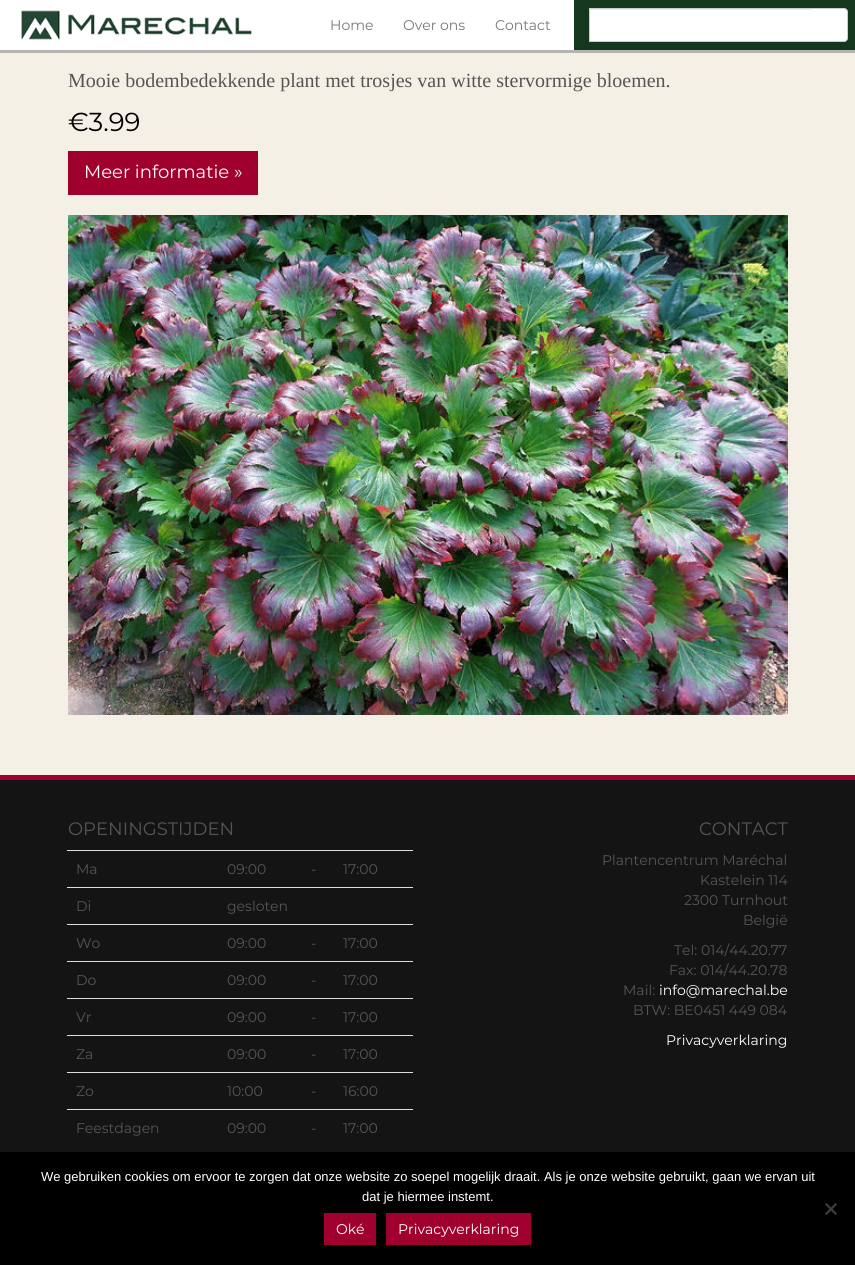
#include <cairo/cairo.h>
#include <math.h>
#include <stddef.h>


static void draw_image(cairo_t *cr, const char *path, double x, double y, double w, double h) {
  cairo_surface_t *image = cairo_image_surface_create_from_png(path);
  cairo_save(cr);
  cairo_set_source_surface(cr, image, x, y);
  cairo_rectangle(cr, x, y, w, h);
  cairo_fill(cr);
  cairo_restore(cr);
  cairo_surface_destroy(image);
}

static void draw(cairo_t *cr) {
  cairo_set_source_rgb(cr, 245 / 255.0, 240 / 255.0, 230 / 255.0);
  cairo_paint(cr);
  cairo_set_source_rgb(cr, 1, 1, 1);
  cairo_rectangle(cr, 0, 0, 574, 50);
  cairo_fill(cr);
  cairo_set_source_rgb(cr, 179 / 255.0, 179 / 255.0, 179 / 255.0);
  cairo_rectangle(cr, 0, 50, 855, 3);
  cairo_fill(cr);
  draw_image(cr, "images/1.png", 21, 10, 231, 30);
  cairo_set_source_rgb(cr, 20 / 255.0, 55 / 255.0, 30 / 255.0);
  cairo_rectangle(cr, 574, 0, 281, 50);
  cairo_fill(cr);
  cairo_set_source_rgb(cr, 1, 1, 1);
  cairo_new_path(cr);
  cairo_move_to(cr, 811.5, 8.5);
  cairo_line_to(cr, 844, 8.5);
  cairo_curve_to(cr, 846, 8.5, 847.5, 10, 847.5, 12);
  cairo_line_to(cr, 847.5, 38);
  cairo_curve_to(cr, 847.5, 40, 846, 41.5, 844, 41.5);
  cairo_line_to(cr, 811.5, 41.5);
  cairo_close_path(cr);
  cairo_fill_preserve(cr);
  cairo_set_source_rgb(cr, 204 / 255.0, 204 / 255.0, 204 / 255.0);
  cairo_set_line_width(cr, 1);
  cairo_stroke(cr);
  cairo_set_source_rgb(cr, 1, 1, 1);
  cairo_rectangle(cr, 590, 10, 222, 31);
  cairo_fill(cr);
  cairo_set_source_rgb(cr, 236 / 255.0, 236 / 255.0, 236 / 255.0);
  cairo_rectangle(cr, 590, 9, 222, 1);
  cairo_fill(cr);
  cairo_set_source_rgb(cr, 204 / 255.0, 204 / 255.0, 204 / 255.0);
  cairo_rectangle(cr, 589, 8, 223, 1);
  cairo_fill(cr);
  cairo_rectangle(cr, 589, 41, 223, 1);
  cairo_fill(cr);
  cairo_rectangle(cr, 589, 8, 1, 34);
  cairo_fill(cr);
  cairo_set_source_rgb(cr, 160 / 255.0, 0, 45 / 255.0);
  cairo_rectangle(cr, 68, 151, 190, 44);
  cairo_fill(cr);
  draw_image(cr, "images/2.png", 68, 215, 720, 500);
  cairo_set_source_rgb(cr, 20 / 255.0, 20 / 255.0, 20 / 255.0);
  cairo_rectangle(cr, 0, 780, 855, 372);
  cairo_fill(cr);
  cairo_set_source_rgb(cr, 160 / 255.0, 0, 45 / 255.0);
  cairo_rectangle(cr, 0, 775, 855, 5);
  cairo_fill(cr);
  cairo_set_source_rgb(cr, 221 / 255.0, 221 / 255.0, 221 / 255.0);
  cairo_rectangle(cr, 67, 850, 346, 1);
  cairo_fill(cr);
  cairo_rectangle(cr, 67, 887, 346, 1);
  cairo_fill(cr);
  cairo_rectangle(cr, 67, 924, 346, 1);
  cairo_fill(cr);
  cairo_rectangle(cr, 67, 961, 346, 1);
  cairo_fill(cr);
  cairo_rectangle(cr, 67, 998, 346, 1);
  cairo_fill(cr);
  cairo_rectangle(cr, 67, 1035, 346, 1);
  cairo_fill(cr);
  cairo_rectangle(cr, 67, 1072, 346, 1);
  cairo_fill(cr);
  cairo_rectangle(cr, 67, 1109, 346, 1);
  cairo_fill(cr);
  cairo_set_source_rgb(cr, 0, 0, 0);
  cairo_rectangle(cr, 0, 1152, 855, 113);
  cairo_fill(cr);
  cairo_set_source_rgb(cr, 64 / 255.0, 64 / 255.0, 64 / 255.0);
  cairo_new_path(cr);
  cairo_move_to(cr, 835.5, 1203);
  cairo_line_to(cr, 837, 1204.5);
  cairo_line_to(cr, 826.5, 1215);
  cairo_line_to(cr, 825, 1213.5);
  cairo_close_path(cr);
  cairo_fill(cr);
  cairo_new_path(cr);
  cairo_move_to(cr, 825, 1204.5);
  cairo_line_to(cr, 826.5, 1203);
  cairo_line_to(cr, 837, 1213.5);
  cairo_line_to(cr, 835.5, 1215);
  cairo_close_path(cr);
  cairo_fill(cr);
  cairo_set_source_rgb(cr, 160 / 255.0, 0, 45 / 255.0);
  cairo_rectangle(cr, 324, 1213, 52, 32);
  cairo_fill(cr);
  cairo_rectangle(cr, 386, 1213, 145, 32);
  cairo_fill(cr);
  cairo_select_font_face(cr, "Montserrat", CAIRO_FONT_SLANT_NORMAL, CAIRO_FONT_WEIGHT_NORMAL);
  cairo_set_font_size(cr, 14);
  cairo_set_source_rgb(cr, 119 / 255.0, 119 / 255.0, 119 / 255.0);
  cairo_move_to(cr, 330, 30);
  cairo_show_text(cr, "Home");
  cairo_move_to(cr, 403, 30);
  cairo_show_text(cr, "Over ons");
  cairo_move_to(cr, 495, 30);
  cairo_show_text(cr, "Contact");
  cairo_select_font_face(cr, "Liberation Serif", CAIRO_FONT_SLANT_NORMAL, CAIRO_FONT_WEIGHT_NORMAL);
  cairo_set_font_size(cr, 20);
  cairo_set_source_rgb(cr, 85 / 255.0, 85 / 255.0, 85 / 255.0);
  cairo_move_to(cr, 68, 87);
  cairo_show_text(cr, "Mooie bodembedekkende plant met trosjes van witte stervormige bloemen.");
  cairo_select_font_face(cr, "Montserrat", CAIRO_FONT_SLANT_NORMAL, CAIRO_FONT_WEIGHT_NORMAL);
  cairo_set_font_size(cr, 26);
  cairo_set_source_rgb(cr, 0, 0, 0);
  cairo_move_to(cr, 68, 131);
  cairo_show_text(cr, "€3.99");
  cairo_set_font_size(cr, 18);
  cairo_set_source_rgb(cr, 1, 1, 1);
  cairo_move_to(cr, 84, 178);
  cairo_show_text(cr, "Meer informatie »");
  cairo_set_source_rgb(cr, 85 / 255.0, 85 / 255.0, 85 / 255.0);
  cairo_move_to(cr, 68, 835);
  cairo_show_text(cr, "OPENINGSTIJDEN");
  cairo_set_font_size(cr, 14);
  cairo_move_to(cr, 76, 874);
  cairo_show_text(cr, "Ma");
  cairo_move_to(cr, 227, 874);
  cairo_show_text(cr, "09:00");
  cairo_move_to(cr, 311, 874);
  cairo_show_text(cr, "-");
  cairo_move_to(cr, 343, 874);
  cairo_show_text(cr, "17:00");
  cairo_move_to(cr, 76, 911);
  cairo_show_text(cr, "Di");
  cairo_move_to(cr, 227, 911);
  cairo_show_text(cr, "gesloten");
  cairo_move_to(cr, 76, 948);
  cairo_show_text(cr, "Wo");
  cairo_move_to(cr, 227, 948);
  cairo_show_text(cr, "09:00");
  cairo_move_to(cr, 311, 948);
  cairo_show_text(cr, "-");
  cairo_move_to(cr, 343, 948);
  cairo_show_text(cr, "17:00");
  cairo_move_to(cr, 76, 985);
  cairo_show_text(cr, "Do");
  cairo_move_to(cr, 227, 985);
  cairo_show_text(cr, "09:00");
  cairo_move_to(cr, 311, 985);
  cairo_show_text(cr, "-");
  cairo_move_to(cr, 343, 985);
  cairo_show_text(cr, "17:00");
  cairo_move_to(cr, 76, 1022);
  cairo_show_text(cr, "Vr");
  cairo_move_to(cr, 227, 1022);
  cairo_show_text(cr, "09:00");
  cairo_move_to(cr, 311, 1022);
  cairo_show_text(cr, "-");
  cairo_move_to(cr, 343, 1022);
  cairo_show_text(cr, "17:00");
  cairo_move_to(cr, 76, 1059);
  cairo_show_text(cr, "Za");
  cairo_move_to(cr, 227, 1059);
  cairo_show_text(cr, "09:00");
  cairo_move_to(cr, 311, 1059);
  cairo_show_text(cr, "-");
  cairo_move_to(cr, 343, 1059);
  cairo_show_text(cr, "17:00");
  cairo_move_to(cr, 76, 1096);
  cairo_show_text(cr, "Zo");
  cairo_move_to(cr, 227, 1096);
  cairo_show_text(cr, "10:00");
  cairo_move_to(cr, 311, 1096);
  cairo_show_text(cr, "-");
  cairo_move_to(cr, 343, 1096);
  cairo_show_text(cr, "16:00");
  cairo_move_to(cr, 76, 1133);
  cairo_show_text(cr, "Feestdagen");
  cairo_move_to(cr, 227, 1133);
  cairo_show_text(cr, "09:00");
  cairo_move_to(cr, 311, 1133);
  cairo_show_text(cr, "-");
  cairo_move_to(cr, 343, 1133);
  cairo_show_text(cr, "17:00");
  cairo_set_font_size(cr, 18);
  cairo_move_to(cr, 699, 835);
  cairo_show_text(cr, "CONTACT");
  cairo_set_font_size(cr, 14);
  cairo_move_to(cr, 602, 865);
  cairo_show_text(cr, "Plantencentrum Maréchal");
  cairo_move_to(cr, 700, 885);
  cairo_show_text(cr, "Kastelein 114");
  cairo_move_to(cr, 684, 905);
  cairo_show_text(cr, "2300 Turnhout");
  cairo_move_to(cr, 743, 925);
  cairo_show_text(cr, "België");
  cairo_move_to(cr, 674, 955);
  cairo_show_text(cr, "Tel: 014/44.20.77");
  cairo_move_to(cr, 669, 975);
  cairo_show_text(cr, "Fax: 014/44.20.78");
  cairo_move_to(cr, 623, 995);
  cairo_show_text(cr, "Mail:");
  cairo_set_source_rgb(cr, 1, 1, 1);
  cairo_move_to(cr, 659, 995);
  cairo_show_text(cr, "info@marechal.be");
  cairo_set_source_rgb(cr, 85 / 255.0, 85 / 255.0, 85 / 255.0);
  cairo_move_to(cr, 633, 1015);
  cairo_show_text(cr, "BTW: BE0451 449 084");
  cairo_set_source_rgb(cr, 1, 1, 1);
  cairo_move_to(cr, 666, 1045);
  cairo_show_text(cr, "Privacyverklaring");
  cairo_select_font_face(cr, "Liberation Sans", CAIRO_FONT_SLANT_NORMAL, CAIRO_FONT_WEIGHT_NORMAL);
  cairo_set_font_size(cr, 13);
  cairo_move_to(cr, 41, 1181);
  cairo_show_text(cr, "We gebruiken cookies om ervoor te zorgen dat onze website zo soepel mogelijk draait. Als je onze website gebruikt, gaan we ervan uit");
  cairo_move_to(cr, 362, 1201);
  cairo_show_text(cr, "dat je hiermee instemt.");
  cairo_select_font_face(cr, "Montserrat", CAIRO_FONT_SLANT_NORMAL, CAIRO_FONT_WEIGHT_NORMAL);
  cairo_set_font_size(cr, 14);
  cairo_move_to(cr, 336, 1234);
  cairo_show_text(cr, "Oké");
  cairo_move_to(cr, 398, 1234);
  cairo_show_text(cr, "Privacyverklaring");
}

int main(void) {
  cairo_surface_t *surface = cairo_image_surface_create(CAIRO_FORMAT_RGB24, 855, 1265);
  cairo_t *cr = cairo_create(surface);
  cairo_font_options_t *options = cairo_font_options_create();
  cairo_font_options_set_hint_metrics(options, CAIRO_HINT_METRICS_OFF);
  cairo_font_options_set_hint_style(options, CAIRO_HINT_STYLE_NONE);
  cairo_set_font_options(cr, options);
  cairo_set_miter_limit(cr, 4);
  draw(cr);
  cairo_surface_write_to_png(surface, "out.png");
  cairo_font_options_destroy(options);
  cairo_destroy(cr);
  cairo_surface_destroy(surface);
  return 0;
}
